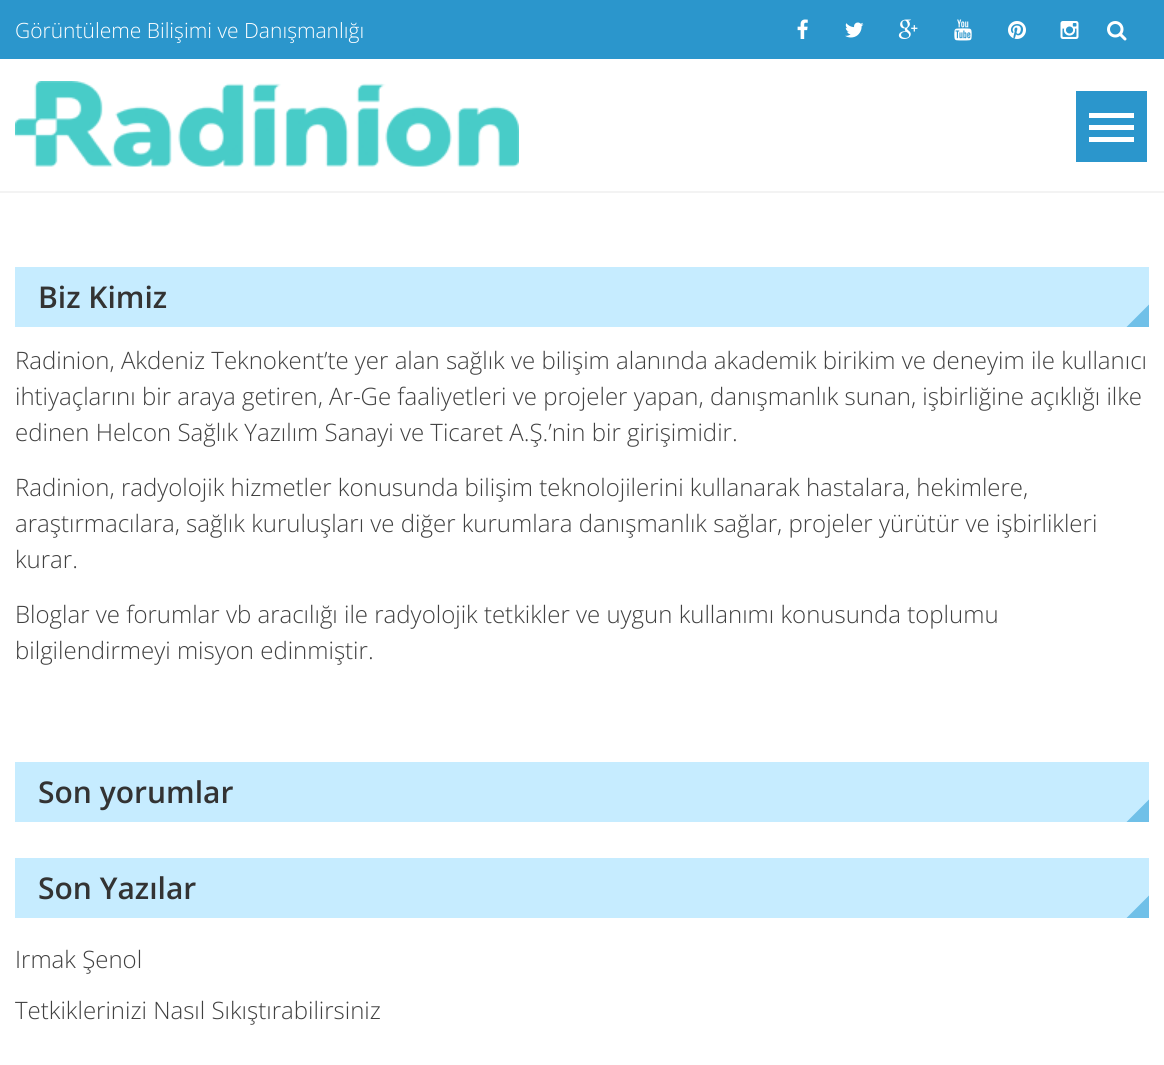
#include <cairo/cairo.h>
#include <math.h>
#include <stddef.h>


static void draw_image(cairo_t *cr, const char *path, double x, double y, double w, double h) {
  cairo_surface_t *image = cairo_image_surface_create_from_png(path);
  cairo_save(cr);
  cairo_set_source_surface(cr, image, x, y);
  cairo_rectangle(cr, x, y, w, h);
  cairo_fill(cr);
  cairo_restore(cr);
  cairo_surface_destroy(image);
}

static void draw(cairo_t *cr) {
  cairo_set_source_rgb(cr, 1, 1, 1);
  cairo_paint(cr);
  cairo_set_source_rgb(cr, 43 / 255.0, 150 / 255.0, 204 / 255.0);
  cairo_rectangle(cr, 0, 0, 1164, 59);
  cairo_fill(cr);
  draw_image(cr, "images/1.png", 797, 19, 11, 20);
  draw_image(cr, "images/2.png", 845, 22, 19, 16);
  draw_image(cr, "images/3.png", 898, 19, 20, 20);
  draw_image(cr, "images/4.png", 954, 19, 18, 22);
  draw_image(cr, "images/5.png", 1008, 21, 18, 18);
  draw_image(cr, "images/6.png", 1060, 21, 19, 18);
  draw_image(cr, "images/7.png", 1107, 21, 20, 20);
  cairo_set_source_rgb(cr, 243 / 255.0, 243 / 255.0, 243 / 255.0);
  cairo_rectangle(cr, 0, 191, 1164, 2);
  cairo_fill(cr);
  draw_image(cr, "images/8.png", 15, 81, 504, 86);
  cairo_set_source_rgb(cr, 43 / 255.0, 150 / 255.0, 204 / 255.0);
  cairo_rectangle(cr, 1076, 91, 71, 71);
  cairo_fill(cr);
  cairo_set_source_rgb(cr, 1, 1, 1);
  cairo_rectangle(cr, 1089, 113, 45, 5);
  cairo_fill(cr);
  cairo_rectangle(cr, 1089, 125, 45, 5);
  cairo_fill(cr);
  cairo_rectangle(cr, 1089, 137, 45, 5);
  cairo_fill(cr);
  cairo_set_source_rgb(cr, 198 / 255.0, 236 / 255.0, 1);
  cairo_rectangle(cr, 15, 267, 1134, 60);
  cairo_fill(cr);
  cairo_set_source_rgb(cr, 112 / 255.0, 192 / 255.0, 232 / 255.0);
  cairo_new_path(cr);
  cairo_move_to(cr, 1149, 327);
  cairo_line_to(cr, 1126.5, 327);
  cairo_line_to(cr, 1149, 304.5);
  cairo_close_path(cr);
  cairo_fill(cr);
  cairo_set_source_rgb(cr, 198 / 255.0, 236 / 255.0, 1);
  cairo_rectangle(cr, 15, 762, 1134, 60);
  cairo_fill(cr);
  cairo_set_source_rgb(cr, 112 / 255.0, 192 / 255.0, 232 / 255.0);
  cairo_new_path(cr);
  cairo_move_to(cr, 1149, 822);
  cairo_line_to(cr, 1126.5, 822);
  cairo_line_to(cr, 1149, 799.5);
  cairo_close_path(cr);
  cairo_fill(cr);
  cairo_set_source_rgb(cr, 198 / 255.0, 236 / 255.0, 1);
  cairo_rectangle(cr, 15, 858, 1134, 60);
  cairo_fill(cr);
  cairo_set_source_rgb(cr, 112 / 255.0, 192 / 255.0, 232 / 255.0);
  cairo_new_path(cr);
  cairo_move_to(cr, 1149, 918);
  cairo_line_to(cr, 1126.5, 918);
  cairo_line_to(cr, 1149, 895.5);
  cairo_close_path(cr);
  cairo_fill(cr);
  cairo_select_font_face(cr, "Open Sans Light", CAIRO_FONT_SLANT_NORMAL, CAIRO_FONT_WEIGHT_NORMAL);
  cairo_set_font_size(cr, 21);
  cairo_set_source_rgb(cr, 1, 1, 1);
  cairo_move_to(cr, 15, 38);
  cairo_show_text(cr, "Görüntüleme Bilişimi ve Danışmanlığı");
  cairo_select_font_face(cr, "Open Sans SemiBold", CAIRO_FONT_SLANT_NORMAL, CAIRO_FONT_WEIGHT_NORMAL);
  cairo_set_font_size(cr, 30);
  cairo_set_source_rgb(cr, 51 / 255.0, 51 / 255.0, 51 / 255.0);
  cairo_move_to(cr, 38, 308);
  cairo_show_text(cr, "Biz Kimiz");
  cairo_select_font_face(cr, "Open Sans Light", CAIRO_FONT_SLANT_NORMAL, CAIRO_FONT_WEIGHT_NORMAL);
  cairo_set_font_size(cr, 24);
  cairo_set_source_rgb(cr, 64 / 255.0, 64 / 255.0, 64 / 255.0);
  cairo_move_to(cr, 15, 369);
  cairo_show_text(cr, "Radinion, Akdeniz Teknokent’te yer alan sağlık ve bilişim alanında akademik birikim ve deneyim ile kullanıcı");
  cairo_move_to(cr, 15, 405);
  cairo_show_text(cr, "ihtiyaçlarını bir araya getiren, Ar-Ge faaliyetleri ve projeler yapan, danışmanlık sunan, işbirliğine açıklığı ilke");
  cairo_move_to(cr, 15, 441);
  cairo_show_text(cr, "edinen Helcon Sağlık Yazılım Sanayi ve Ticaret A.Ş.’nin bir girişimidir.");
  cairo_move_to(cr, 15, 496);
  cairo_show_text(cr, "Radinion, radyolojik hizmetler konusunda bilişim teknolojilerini kullanarak hastalara, hekimlere,");
  cairo_move_to(cr, 15, 532);
  cairo_show_text(cr, "araştırmacılara, sağlık kuruluşları ve diğer kurumlara danışmanlık sağlar, projeler yürütür ve işbirlikleri");
  cairo_move_to(cr, 15, 568);
  cairo_show_text(cr, "kurar.");
  cairo_move_to(cr, 15, 623);
  cairo_show_text(cr, "Bloglar ve forumlar vb aracılığı ile radyolojik tetkikler ve uygun kullanımı konusunda toplumu");
  cairo_move_to(cr, 15, 659);
  cairo_show_text(cr, "bilgilendirmeyi misyon edinmiştir.");
  cairo_select_font_face(cr, "Open Sans SemiBold", CAIRO_FONT_SLANT_NORMAL, CAIRO_FONT_WEIGHT_NORMAL);
  cairo_set_font_size(cr, 30);
  cairo_set_source_rgb(cr, 51 / 255.0, 51 / 255.0, 51 / 255.0);
  cairo_move_to(cr, 38, 803);
  cairo_show_text(cr, "Son yorumlar");
  cairo_move_to(cr, 38, 899);
  cairo_show_text(cr, "Son Yazılar");
  cairo_select_font_face(cr, "Open Sans Light", CAIRO_FONT_SLANT_NORMAL, CAIRO_FONT_WEIGHT_NORMAL);
  cairo_set_font_size(cr, 24);
  cairo_set_source_rgb(cr, 64 / 255.0, 64 / 255.0, 64 / 255.0);
  cairo_move_to(cr, 15, 968);
  cairo_show_text(cr, "Irmak Şenol");
  cairo_move_to(cr, 15, 1019);
  cairo_show_text(cr, "Tetkiklerinizi Nasıl Sıkıştırabilirsiniz");
}

int main(void) {
  cairo_surface_t *surface = cairo_image_surface_create(CAIRO_FORMAT_RGB24, 1164, 1065);
  cairo_t *cr = cairo_create(surface);
  cairo_font_options_t *options = cairo_font_options_create();
  cairo_font_options_set_hint_metrics(options, CAIRO_HINT_METRICS_OFF);
  cairo_font_options_set_hint_style(options, CAIRO_HINT_STYLE_NONE);
  cairo_set_font_options(cr, options);
  cairo_set_miter_limit(cr, 4);
  draw(cr);
  cairo_surface_write_to_png(surface, "out.png");
  cairo_font_options_destroy(options);
  cairo_destroy(cr);
  cairo_surface_destroy(surface);
  return 0;
}
